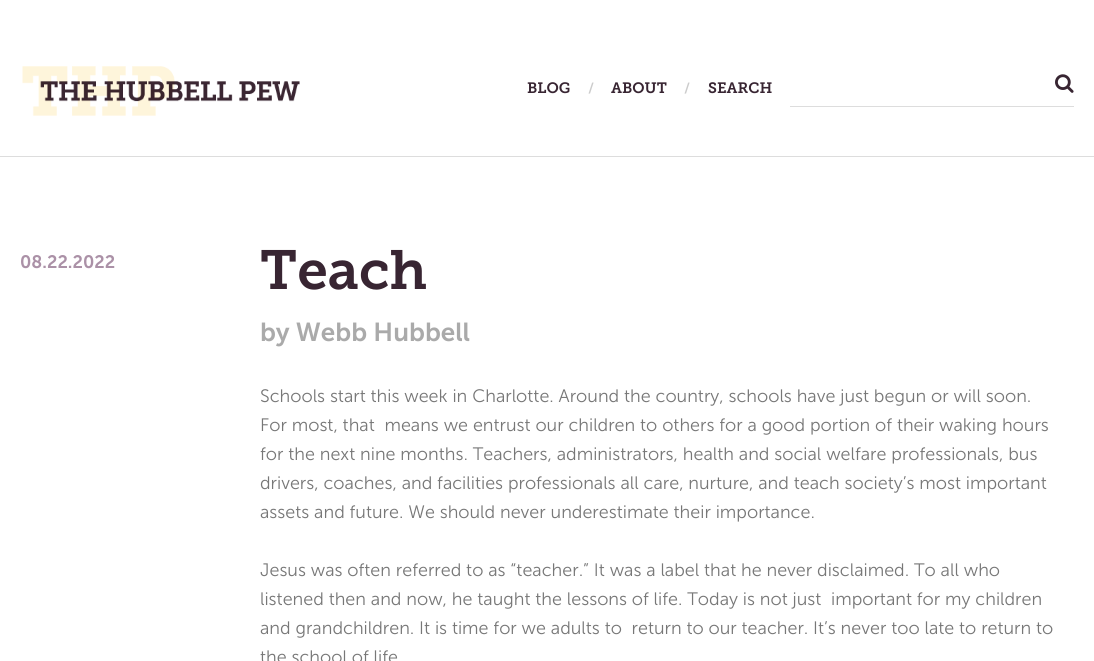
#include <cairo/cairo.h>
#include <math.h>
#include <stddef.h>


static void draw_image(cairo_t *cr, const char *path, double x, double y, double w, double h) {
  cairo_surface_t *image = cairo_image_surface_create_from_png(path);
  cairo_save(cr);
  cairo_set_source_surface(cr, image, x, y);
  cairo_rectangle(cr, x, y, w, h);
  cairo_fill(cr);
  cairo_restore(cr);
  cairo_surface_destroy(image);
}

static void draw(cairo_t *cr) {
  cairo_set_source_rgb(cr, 1, 1, 1);
  cairo_paint(cr);
  cairo_set_source_rgb(cr, 221 / 255.0, 221 / 255.0, 221 / 255.0);
  cairo_rectangle(cr, 0, 156, 1094, 1);
  cairo_fill(cr);
  draw_image(cr, "images/1.png", 22, 66, 278, 50);
  cairo_rectangle(cr, 790, 106, 284, 1);
  cairo_fill(cr);
  draw_image(cr, "images/2.png", 1055, 74, 19, 19);
  cairo_select_font_face(cr, "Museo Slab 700 SemiBold", CAIRO_FONT_SLANT_NORMAL, CAIRO_FONT_WEIGHT_NORMAL);
  cairo_set_font_size(cr, 15);
  cairo_set_source_rgb(cr, 56 / 255.0, 37 / 255.0, 50 / 255.0);
  cairo_move_to(cr, 527, 93);
  cairo_show_text(cr, "BLOG");
  cairo_set_font_size(cr, 14);
  cairo_set_source_rgb(cr, 204 / 255.0, 204 / 255.0, 204 / 255.0);
  cairo_move_to(cr, 588, 93);
  cairo_show_text(cr, "/");
  cairo_set_font_size(cr, 15);
  cairo_set_source_rgb(cr, 56 / 255.0, 37 / 255.0, 50 / 255.0);
  cairo_move_to(cr, 611, 93);
  cairo_show_text(cr, "ABOUT");
  cairo_set_font_size(cr, 14);
  cairo_set_source_rgb(cr, 204 / 255.0, 204 / 255.0, 204 / 255.0);
  cairo_move_to(cr, 684, 93);
  cairo_show_text(cr, "/");
  cairo_set_font_size(cr, 15);
  cairo_set_source_rgb(cr, 56 / 255.0, 37 / 255.0, 50 / 255.0);
  cairo_move_to(cr, 708, 93);
  cairo_show_text(cr, "SEARCH");
  cairo_set_font_size(cr, 55);
  cairo_move_to(cr, 260, 289);
  cairo_show_text(cr, "Teach");
  cairo_select_font_face(cr, "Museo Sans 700 SemiBold", CAIRO_FONT_SLANT_NORMAL, CAIRO_FONT_WEIGHT_NORMAL);
  cairo_set_font_size(cr, 18);
  cairo_set_source_rgb(cr, 171 / 255.0, 145 / 255.0, 167 / 255.0);
  cairo_move_to(cr, 20, 268);
  cairo_show_text(cr, "08.22.2022");
  cairo_set_font_size(cr, 26);
  cairo_set_source_rgb(cr, 170 / 255.0, 170 / 255.0, 170 / 255.0);
  cairo_move_to(cr, 260, 341);
  cairo_show_text(cr, "by Webb Hubbell");
  cairo_select_font_face(cr, "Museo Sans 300 Light", CAIRO_FONT_SLANT_NORMAL, CAIRO_FONT_WEIGHT_NORMAL);
  cairo_set_font_size(cr, 18);
  cairo_set_source_rgb(cr, 119 / 255.0, 119 / 255.0, 119 / 255.0);
  cairo_move_to(cr, 260, 402);
  cairo_show_text(cr, "Schools start this week in Charlotte. Around the country, schools have just begun or will soon.");
  cairo_move_to(cr, 260, 431);
  cairo_show_text(cr, "For most, that  means we entrust our children to others for a good portion of their waking hours");
  cairo_move_to(cr, 260, 460);
  cairo_show_text(cr, "for the next nine months. Teachers, administrators, health and social welfare professionals, bus");
  cairo_move_to(cr, 260, 489);
  cairo_show_text(cr, "drivers, coaches, and facilities professionals all care, nurture, and teach society’s most important");
  cairo_move_to(cr, 260, 518);
  cairo_show_text(cr, "assets and future. We should never underestimate their importance.");
  cairo_move_to(cr, 260, 576);
  cairo_show_text(cr, "Jesus was often referred to as “teacher.” It was a label that he never disclaimed. To all who");
  cairo_move_to(cr, 260, 605);
  cairo_show_text(cr, "listened then and now, he taught the lessons of life. Today is not just  important for my children");
  cairo_move_to(cr, 260, 634);
  cairo_show_text(cr, "and grandchildren. It is time for we adults to  return to our teacher. It’s never too late to return to");
  cairo_move_to(cr, 260, 663);
  cairo_show_text(cr, "the school of life");
}

int main(void) {
  cairo_surface_t *surface = cairo_image_surface_create(CAIRO_FORMAT_RGB24, 1094, 661);
  cairo_t *cr = cairo_create(surface);
  cairo_font_options_t *options = cairo_font_options_create();
  cairo_font_options_set_hint_metrics(options, CAIRO_HINT_METRICS_OFF);
  cairo_font_options_set_hint_style(options, CAIRO_HINT_STYLE_NONE);
  cairo_set_font_options(cr, options);
  cairo_set_miter_limit(cr, 4);
  draw(cr);
  cairo_surface_write_to_png(surface, "out.png");
  cairo_font_options_destroy(options);
  cairo_destroy(cr);
  cairo_surface_destroy(surface);
  return 0;
}
